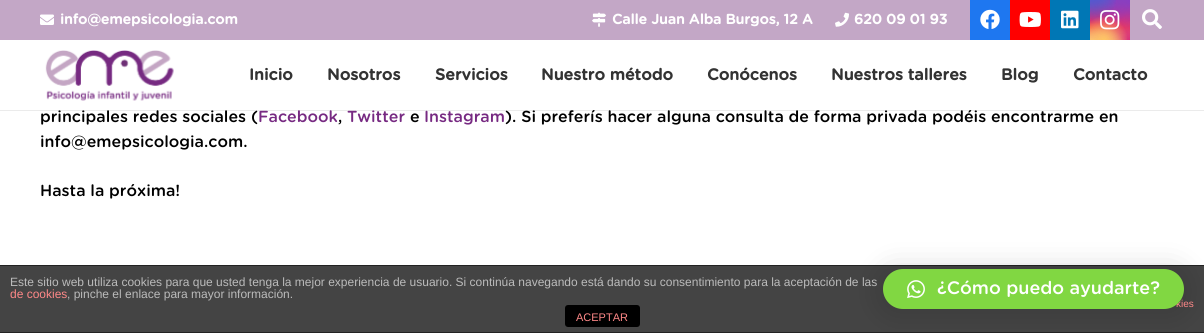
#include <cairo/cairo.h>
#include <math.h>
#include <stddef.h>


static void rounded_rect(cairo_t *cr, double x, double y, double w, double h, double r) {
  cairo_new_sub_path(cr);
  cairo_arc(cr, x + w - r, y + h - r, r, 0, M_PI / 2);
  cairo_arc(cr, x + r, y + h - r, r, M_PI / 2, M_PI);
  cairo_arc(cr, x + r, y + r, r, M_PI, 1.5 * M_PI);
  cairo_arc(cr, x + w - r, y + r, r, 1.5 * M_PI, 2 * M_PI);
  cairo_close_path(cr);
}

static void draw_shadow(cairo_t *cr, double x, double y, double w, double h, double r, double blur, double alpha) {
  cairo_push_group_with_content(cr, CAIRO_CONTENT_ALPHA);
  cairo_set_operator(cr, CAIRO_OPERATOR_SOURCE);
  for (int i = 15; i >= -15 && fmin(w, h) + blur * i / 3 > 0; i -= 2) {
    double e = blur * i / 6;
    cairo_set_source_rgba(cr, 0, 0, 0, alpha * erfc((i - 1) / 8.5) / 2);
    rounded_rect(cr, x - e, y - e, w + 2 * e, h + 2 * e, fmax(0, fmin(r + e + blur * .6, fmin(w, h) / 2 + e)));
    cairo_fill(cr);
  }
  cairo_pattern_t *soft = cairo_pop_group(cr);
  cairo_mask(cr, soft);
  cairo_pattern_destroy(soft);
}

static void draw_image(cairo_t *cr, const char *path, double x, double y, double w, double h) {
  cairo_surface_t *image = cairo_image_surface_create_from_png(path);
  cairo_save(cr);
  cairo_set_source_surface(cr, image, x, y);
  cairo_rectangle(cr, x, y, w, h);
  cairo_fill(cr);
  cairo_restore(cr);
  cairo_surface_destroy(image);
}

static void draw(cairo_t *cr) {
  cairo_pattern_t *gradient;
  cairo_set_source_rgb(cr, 1, 1, 1);
  cairo_paint(cr);
  cairo_set_source_rgb(cr, 195 / 255.0, 167 / 255.0, 198 / 255.0);
  cairo_rectangle(cr, 0, 0, 1204, 40);
  cairo_fill(cr);
  draw_image(cr, "images/1.png", 40, 14, 14, 11);
  draw_image(cr, "images/2.png", 592, 12, 14, 15);
  draw_image(cr, "images/3.png", 835, 12, 14, 15);
  cairo_set_source_rgb(cr, 30 / 255.0, 119 / 255.0, 240 / 255.0);
  cairo_rectangle(cr, 970, 0, 40, 40);
  cairo_fill(cr);
  draw_image(cr, "images/4.png", 980, 9, 20, 20);
  cairo_set_source_rgb(cr, 1, 0, 0);
  cairo_rectangle(cr, 1010, 0, 40, 40);
  cairo_fill(cr);
  draw_image(cr, "images/5.png", 1019, 12, 22, 15);
  cairo_set_source_rgb(cr, 0, 119 / 255.0, 181 / 255.0);
  cairo_rectangle(cr, 1050, 0, 40, 40);
  cairo_fill(cr);
  draw_image(cr, "images/6.png", 1061, 10, 18, 19);
  gradient = cairo_pattern_create_linear(1110, 0, 1110, 40);
  cairo_pattern_add_color_stop_rgba(gradient, 0, 101 / 255.0, 89 / 255.0, 202 / 255.0, 1);
  cairo_pattern_add_color_stop_rgba(gradient, 0.3, 188 / 255.0, 49 / 255.0, 143 / 255.0, 1);
  cairo_pattern_add_color_stop_rgba(gradient, 0.5, 228 / 255.0, 46 / 255.0, 102 / 255.0, 1);
  cairo_pattern_add_color_stop_rgba(gradient, 0.7, 250 / 255.0, 83 / 255.0, 50 / 255.0, 1);
  cairo_pattern_add_color_stop_rgba(gradient, 1, 1, 220 / 255.0, 128 / 255.0, 1);
  cairo_set_source(cr, gradient);
  cairo_pattern_destroy(gradient);
  cairo_rectangle(cr, 1090, 0, 40, 40);
  cairo_fill(cr);
  gradient = cairo_pattern_create_radial(1130, 40, 0, 1130, 40, 57);
  cairo_pattern_add_color_stop_rgba(gradient, 0, 217 / 255.0, 49 / 255.0, 122 / 255.0, 1);
  cairo_pattern_add_color_stop_rgba(gradient, 1, 217 / 255.0, 49 / 255.0, 122 / 255.0, 0);
  cairo_set_source(cr, gradient);
  cairo_pattern_destroy(gradient);
  cairo_rectangle(cr, 1090, 0, 40, 40);
  cairo_fill(cr);
  gradient = cairo_pattern_create_radial(0, 0, 0, 0, 0, 1);
  cairo_pattern_set_matrix(gradient, &(cairo_matrix_t){1.0 / 34, 0, 0, 1.0 / 68, -1.0 * 1114 / 34, -1.0 * -8 / 68});
  cairo_pattern_add_color_stop_rgba(gradient, 0, 137 / 255.0, 61 / 255.0, 194 / 255.0, 1);
  cairo_pattern_add_color_stop_rgba(gradient, 0.5, 137 / 255.0, 61 / 255.0, 194 / 255.0, 0);
  cairo_set_source(cr, gradient);
  cairo_pattern_destroy(gradient);
  cairo_rectangle(cr, 1100, 0, 29, 25);
  cairo_fill(cr);
  gradient = cairo_pattern_create_radial(1130, 0, 0, 1130, 0, 57);
  cairo_pattern_add_color_stop_rgba(gradient, 0, 137 / 255.0, 61 / 255.0, 194 / 255.0, 1);
  cairo_pattern_add_color_stop_rgba(gradient, 0.5, 137 / 255.0, 61 / 255.0, 194 / 255.0, 0);
  cairo_set_source(cr, gradient);
  cairo_pattern_destroy(gradient);
  cairo_rectangle(cr, 1105, 0, 25, 28);
  cairo_fill(cr);
  gradient = cairo_pattern_create_radial(0, 0, 0, 0, 0, 1);
  cairo_pattern_set_matrix(gradient, &(cairo_matrix_t){1.0 / 45, 0, 0, 1.0 / 85, -1.0 * 1098 / 45, -1.0 * -20 / 85});
  cairo_pattern_add_color_stop_rgba(gradient, 0, 82 / 255.0, 88 / 255.0, 207 / 255.0, 1);
  cairo_pattern_add_color_stop_rgba(gradient, 0.5, 82 / 255.0, 88 / 255.0, 207 / 255.0, 0);
  cairo_set_source(cr, gradient);
  cairo_pattern_destroy(gradient);
  cairo_rectangle(cr, 1090, 0, 26, 22);
  cairo_fill(cr);
  gradient = cairo_pattern_create_radial(0, 0, 0, 0, 0, 1);
  cairo_pattern_set_matrix(gradient, &(cairo_matrix_t){1.0 / 57, 0, 0, 1.0 / 71, -1.0 * 1090 / 57, -1.0 * -10 / 71});
  cairo_pattern_add_color_stop_rgba(gradient, 0, 82 / 255.0, 88 / 255.0, 207 / 255.0, 1);
  cairo_pattern_add_color_stop_rgba(gradient, 0.5, 82 / 255.0, 88 / 255.0, 207 / 255.0, 0);
  cairo_set_source(cr, gradient);
  cairo_pattern_destroy(gradient);
  cairo_rectangle(cr, 1090, 0, 26, 25);
  cairo_fill(cr);
  gradient = cairo_pattern_create_radial(1094, 56, 0, 1094, 56, 67);
  cairo_pattern_add_color_stop_rgba(gradient, 0, 254 / 255.0, 218 / 255.0, 126 / 255.0, 1);
  cairo_pattern_add_color_stop_rgba(gradient, 0.5, 254 / 255.0, 218 / 255.0, 126 / 255.0, 0);
  cairo_set_source(cr, gradient);
  cairo_pattern_destroy(gradient);
  cairo_rectangle(cr, 1090, 23, 32, 17);
  cairo_fill(cr);
  gradient = cairo_pattern_create_radial(1104, 40, 0, 1104, 40, 48);
  cairo_pattern_add_color_stop_rgba(gradient, 0, 254 / 255.0, 197 / 255.0, 100 / 255.0, 1);
  cairo_pattern_add_color_stop_rgba(gradient, 0.5, 254 / 255.0, 197 / 255.0, 100 / 255.0, 0);
  cairo_set_source(cr, gradient);
  cairo_pattern_destroy(gradient);
  cairo_rectangle(cr, 1090, 17, 37, 23);
  cairo_fill(cr);
  draw_image(cr, "images/7.png", 1100, 10, 20, 20);
  draw_image(cr, "images/8.png", 1142, 9, 20, 20);
  cairo_set_source_rgba(cr, 0, 0, 0, 0.08);
  cairo_rectangle(cr, 0, 110, 1204, 1);
  cairo_fill(cr);
  draw_image(cr, "images/9.png", 45, 50, 129, 51);
  cairo_set_source_rgb(cr, 68 / 255.0, 68 / 255.0, 68 / 255.0);
  cairo_rectangle(cr, 0, 266, 1204, 66);
  cairo_fill(cr);
  cairo_set_source_rgb(cr, 34 / 255.0, 34 / 255.0, 34 / 255.0);
  cairo_rectangle(cr, 0, 265, 1204, 1);
  cairo_fill(cr);
  cairo_rectangle(cr, 0, 332, 1204, 1);
  cairo_fill(cr);
  cairo_set_source_rgb(cr, 0, 0, 0);
  rounded_rect(cr, 565, 305, 75, 22, 3);
  cairo_fill(cr);
  cairo_set_source_rgb(cr, 0, 0, 0);
  draw_shadow(cr, 883, 271, 301, 40, 20, 16, 0.16);
  cairo_select_font_face(cr, "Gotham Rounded", CAIRO_FONT_SLANT_NORMAL, CAIRO_FONT_WEIGHT_BOLD);
  cairo_set_font_size(cr, 14);
  cairo_set_source_rgb(cr, 1, 1, 1);
  cairo_move_to(cr, 60, 24);
  cairo_show_text(cr, "info@emepsicologia.com");
  cairo_move_to(cr, 612, 24);
  cairo_show_text(cr, "Calle Juan Alba Burgos, 12 A");
  cairo_move_to(cr, 854, 24);
  cairo_show_text(cr, "620 09 01 93");
  cairo_set_font_size(cr, 16);
  cairo_set_source_rgb(cr, 51 / 255.0, 51 / 255.0, 51 / 255.0);
  cairo_move_to(cr, 249, 80);
  cairo_show_text(cr, "Inicio");
  cairo_move_to(cr, 327, 80);
  cairo_show_text(cr, "Nosotros");
  cairo_move_to(cr, 435, 80);
  cairo_show_text(cr, "Servicios");
  cairo_move_to(cr, 541, 80);
  cairo_show_text(cr, "Nuestro método");
  cairo_move_to(cr, 707, 80);
  cairo_show_text(cr, "Conócenos");
  cairo_move_to(cr, 831, 80);
  cairo_show_text(cr, "Nuestros talleres");
  cairo_move_to(cr, 1001, 80);
  cairo_show_text(cr, "Blog");
  cairo_move_to(cr, 1073, 80);
  cairo_show_text(cr, "Contacto");
  cairo_select_font_face(cr, "Gotham Rounded Medium", CAIRO_FONT_SLANT_NORMAL, CAIRO_FONT_WEIGHT_NORMAL);
  cairo_set_source_rgb(cr, 0, 0, 0);
  cairo_move_to(cr, 40, 122);
  cairo_show_text(cr, "principales redes sociales (");
  cairo_set_source_rgb(cr, 119 / 255.0, 42 / 255.0, 130 / 255.0);
  cairo_move_to(cr, 258, 122);
  cairo_show_text(cr, "Facebook");
  cairo_set_source_rgb(cr, 0, 0, 0);
  cairo_move_to(cr, 338, 122);
  cairo_show_text(cr, ",");
  cairo_set_source_rgb(cr, 119 / 255.0, 42 / 255.0, 130 / 255.0);
  cairo_move_to(cr, 347, 122);
  cairo_show_text(cr, "Twitter");
  cairo_set_source_rgb(cr, 0, 0, 0);
  cairo_move_to(cr, 410, 122);
  cairo_show_text(cr, "e");
  cairo_set_source_rgb(cr, 119 / 255.0, 42 / 255.0, 130 / 255.0);
  cairo_move_to(cr, 424, 122);
  cairo_show_text(cr, "Instagram");
  cairo_set_source_rgb(cr, 0, 0, 0);
  cairo_move_to(cr, 505, 122);
  cairo_show_text(cr, "). Si preferís hacer alguna consulta de forma privada podéis encontrarme en");
  cairo_move_to(cr, 40, 147);
  cairo_show_text(cr, "info@emepsicologia.com.");
  cairo_move_to(cr, 40, 196);
  cairo_show_text(cr, "Hasta la próxima!");
  cairo_select_font_face(cr, "Liberation Sans", CAIRO_FONT_SLANT_NORMAL, CAIRO_FONT_WEIGHT_NORMAL);
  cairo_set_font_size(cr, 12);
  cairo_set_source_rgb(cr, 187 / 255.0, 187 / 255.0, 187 / 255.0);
  cairo_move_to(cr, 10, 286);
  cairo_show_text(cr, "Este sitio web utiliza cookies para que usted tenga la mejor experiencia de usuario. Si continúa navegando está dando su consentimiento para la aceptación de las");
  cairo_set_source_rgb(cr, 1, 136 / 255.0, 136 / 255.0);
  cairo_move_to(cr, 10, 298);
  cairo_show_text(cr, "de cookies");
  cairo_set_source_rgb(cr, 187 / 255.0, 187 / 255.0, 187 / 255.0);
  cairo_move_to(cr, 67, 298);
  cairo_show_text(cr, ", pinche el enlace para mayor información.");
  cairo_set_font_size(cr, 10);
  cairo_set_source_rgb(cr, 1, 136 / 255.0, 136 / 255.0);
  cairo_move_to(cr, 1176, 307);
  cairo_show_text(cr, "kies");
  cairo_set_font_size(cr, 11);
  cairo_move_to(cr, 576, 321);
  cairo_show_text(cr, "ACEPTAR");
  cairo_set_source_rgb(cr, 129 / 255.0, 215 / 255.0, 66 / 255.0);
  rounded_rect(cr, 883, 269, 301, 40, 20);
  cairo_fill(cr);
  draw_image(cr, "images/10.png", 907, 280, 18, 19);
  cairo_select_font_face(cr, "Gotham Rounded Medium", CAIRO_FONT_SLANT_NORMAL, CAIRO_FONT_WEIGHT_NORMAL);
  cairo_set_font_size(cr, 18);
  cairo_set_source_rgb(cr, 1, 1, 1);
  cairo_move_to(cr, 937, 294);
  cairo_show_text(cr, "¿Cómo puedo ayudarte?");
}

int main(void) {
  cairo_surface_t *surface = cairo_image_surface_create(CAIRO_FORMAT_RGB24, 1204, 333);
  cairo_t *cr = cairo_create(surface);
  cairo_font_options_t *options = cairo_font_options_create();
  cairo_font_options_set_hint_metrics(options, CAIRO_HINT_METRICS_OFF);
  cairo_font_options_set_hint_style(options, CAIRO_HINT_STYLE_NONE);
  cairo_set_font_options(cr, options);
  cairo_set_miter_limit(cr, 4);
  draw(cr);
  cairo_surface_write_to_png(surface, "out.png");
  cairo_font_options_destroy(options);
  cairo_destroy(cr);
  cairo_surface_destroy(surface);
  return 0;
}
